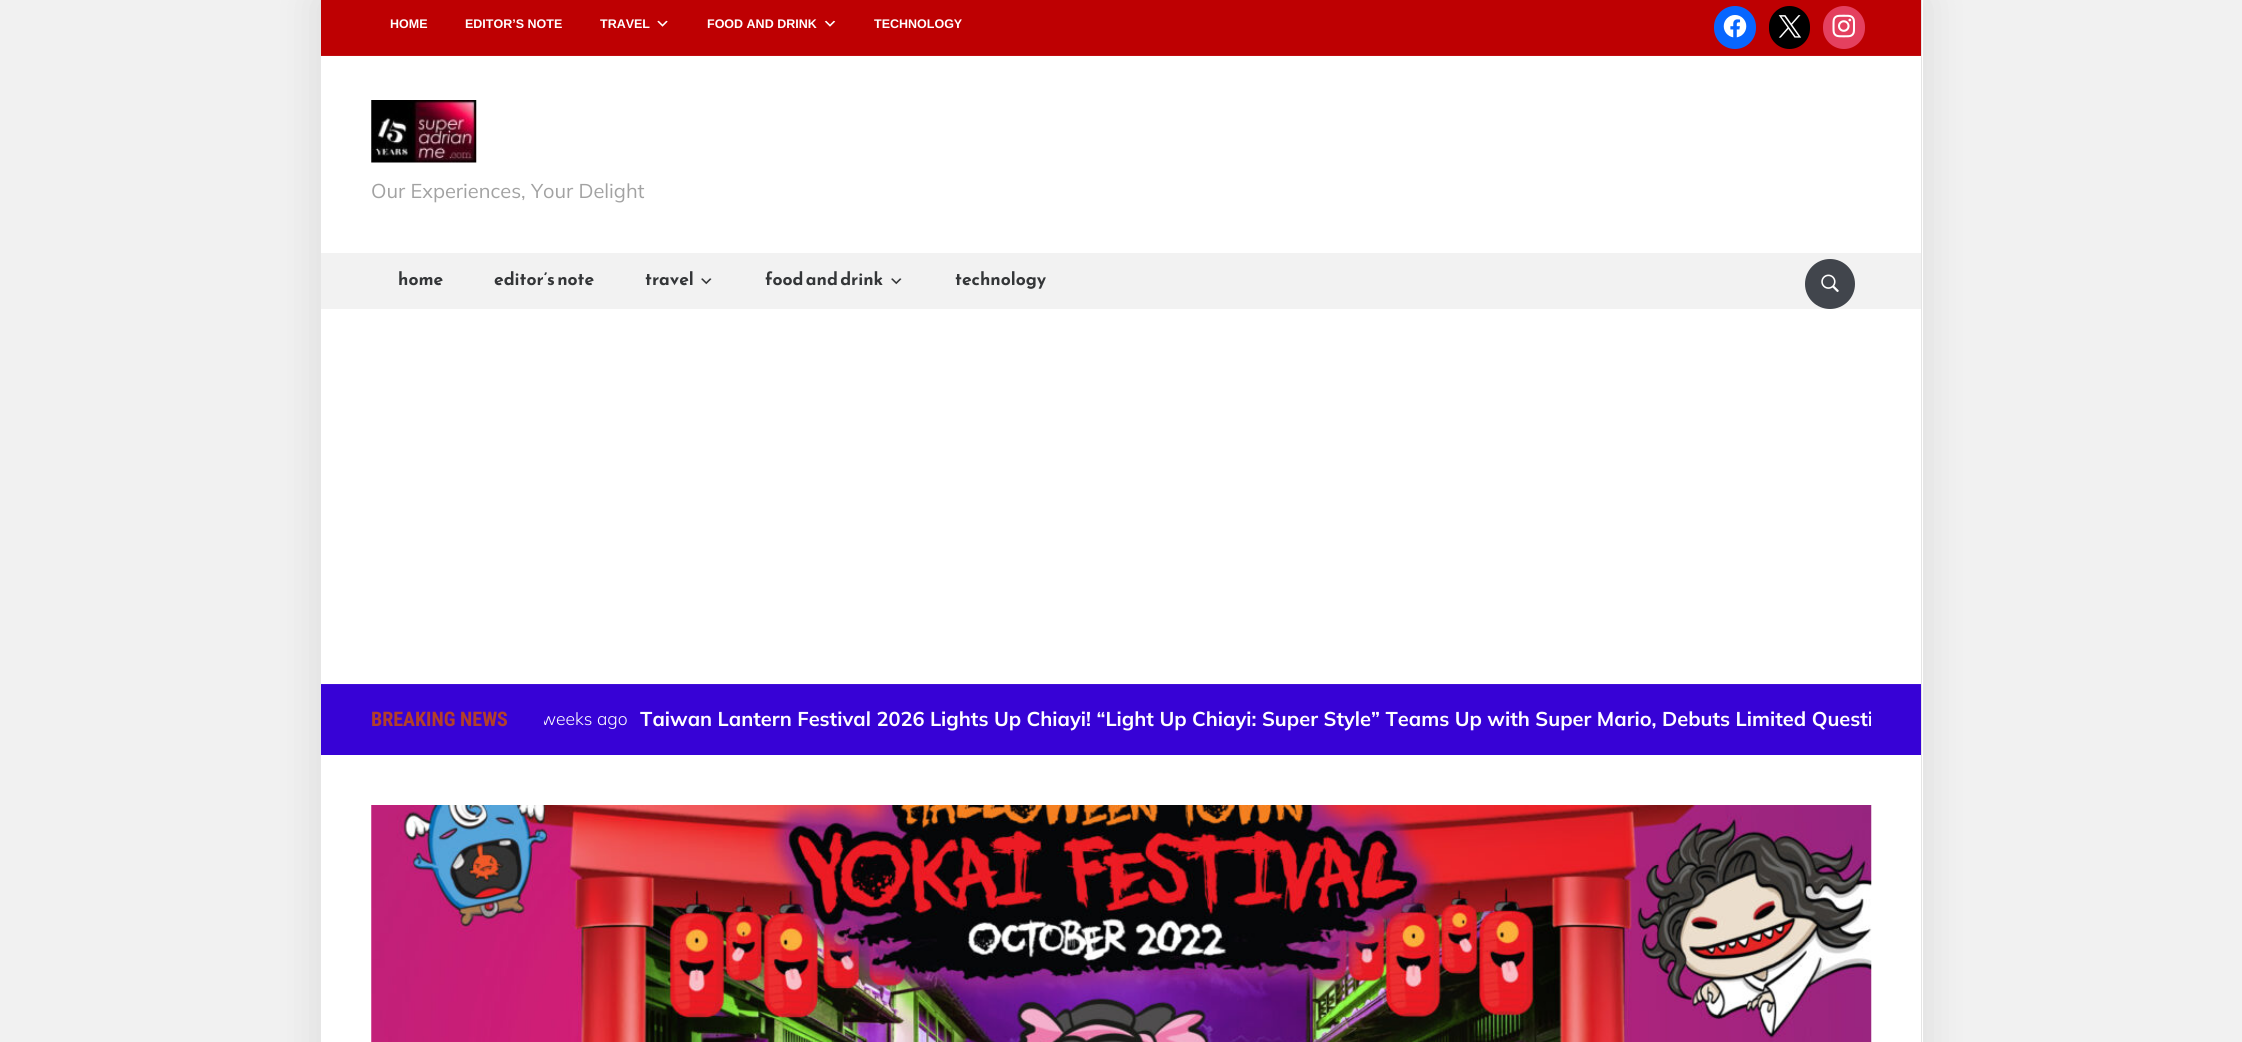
#include <cairo/cairo.h>
#include <math.h>
#include <stddef.h>


static void rounded_rect(cairo_t *cr, double x, double y, double w, double h, double r) {
  cairo_new_sub_path(cr);
  cairo_arc(cr, x + w - r, y + h - r, r, 0, M_PI / 2);
  cairo_arc(cr, x + r, y + h - r, r, M_PI / 2, M_PI);
  cairo_arc(cr, x + r, y + r, r, M_PI, 1.5 * M_PI);
  cairo_arc(cr, x + w - r, y + r, r, 1.5 * M_PI, 2 * M_PI);
  cairo_close_path(cr);
}

static void draw_shadow(cairo_t *cr, double x, double y, double w, double h, double r, double blur, double alpha) {
  cairo_push_group_with_content(cr, CAIRO_CONTENT_ALPHA);
  cairo_set_operator(cr, CAIRO_OPERATOR_SOURCE);
  for (int i = 15; i >= -15 && fmin(w, h) + blur * i / 3 > 0; i -= 2) {
    double e = blur * i / 6;
    cairo_set_source_rgba(cr, 0, 0, 0, alpha * erfc((i - 1) / 8.5) / 2);
    rounded_rect(cr, x - e, y - e, w + 2 * e, h + 2 * e, fmax(0, fmin(r + e + blur * .6, fmin(w, h) / 2 + e)));
    cairo_fill(cr);
  }
  cairo_pattern_t *soft = cairo_pop_group(cr);
  cairo_mask(cr, soft);
  cairo_pattern_destroy(soft);
}

static void draw_image(cairo_t *cr, const char *path, double x, double y, double w, double h) {
  cairo_surface_t *image = cairo_image_surface_create_from_png(path);
  cairo_save(cr);
  cairo_set_source_surface(cr, image, x, y);
  cairo_rectangle(cr, x, y, w, h);
  cairo_fill(cr);
  cairo_restore(cr);
  cairo_surface_destroy(image);
}

static void draw(cairo_t *cr) {
  cairo_set_source_rgb(cr, 241 / 255.0, 241 / 255.0, 241 / 255.0);
  cairo_paint(cr);
  cairo_set_source_rgb(cr, 0, 0, 0);
  draw_shadow(cr, 320, 0, 1603, 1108, 0, 22, 0.1);
  cairo_set_source_rgb(cr, 1, 1, 1);
  cairo_rectangle(cr, 321, 0, 1602, 1042);
  cairo_fill(cr);
  cairo_set_source_rgb(cr, 228 / 255.0, 228 / 255.0, 228 / 255.0);
  cairo_rectangle(cr, 1921, 0, 1, 1042);
  cairo_fill(cr);
  cairo_rectangle(cr, 320, 0, 1, 23);
  cairo_fill(cr);
  cairo_set_source_rgb(cr, 190 / 255.0, 0, 2 / 255.0);
  cairo_rectangle(cr, 321, 0, 1600, 55);
  cairo_fill(cr);
  cairo_set_source_rgb(cr, 193 / 255.0, 13 / 255.0, 15 / 255.0);
  cairo_rectangle(cr, 321, 55, 1600, 1);
  cairo_fill(cr);
  draw_image(cr, "images/1.png", 657, 20, 11, 7);
  draw_image(cr, "images/2.png", 824, 20, 12, 7);
  cairo_set_source_rgb(cr, 8 / 255.0, 102 / 255.0, 1);
  rounded_rect(cr, 1714, 6, 42, 43, 21);
  cairo_fill(cr);
  draw_image(cr, "images/3.png", 1723, 15, 24, 23);
  cairo_set_source_rgb(cr, 0, 0, 0);
  rounded_rect(cr, 1769, 6, 41, 43, 20.5);
  cairo_fill(cr);
  draw_image(cr, "images/4.png", 1778, 15, 24, 23);
  cairo_set_source_rgb(cr, 228 / 255.0, 64 / 255.0, 95 / 255.0);
  rounded_rect(cr, 1823, 6, 42, 43, 21);
  cairo_fill(cr);
  draw_image(cr, "images/5.png", 1832, 14, 23, 24);
  draw_image(cr, "images/6.png", 371, 100, 106, 63);
  cairo_set_source_rgb(cr, 242 / 255.0, 242 / 255.0, 242 / 255.0);
  cairo_rectangle(cr, 321, 253, 1600, 56);
  cairo_fill(cr);
  draw_image(cr, "images/7.png", 701, 278, 11, 7);
  draw_image(cr, "images/7.png", 891, 278, 11, 7);
  cairo_set_source_rgb(cr, 65 / 255.0, 69 / 255.0, 76 / 255.0);
  cairo_arc(cr, 1830, 284, 25, 0, 2 * M_PI);
  cairo_fill(cr);
  draw_image(cr, "images/8.png", 1821, 274, 18, 18);
  cairo_set_source_rgb(cr, 55 / 255.0, 2 / 255.0, 214 / 255.0);
  cairo_rectangle(cr, 321, 685, 1600, 70);
  cairo_fill(cr);
  cairo_set_source_rgb(cr, 65 / 255.0, 15 / 255.0, 216 / 255.0);
  cairo_rectangle(cr, 321, 684, 1600, 1);
  cairo_fill(cr);
  draw_image(cr, "images/9.png", 371, 805, 1501, 237);
  cairo_select_font_face(cr, "Liberation Sans", CAIRO_FONT_SLANT_NORMAL, CAIRO_FONT_WEIGHT_BOLD);
  cairo_set_font_size(cr, 12.5);
  cairo_set_source_rgb(cr, 1, 1, 1);
  cairo_move_to(cr, 390, 28);
  cairo_show_text(cr, "HOME");
  cairo_move_to(cr, 465, 28);
  cairo_show_text(cr, "EDITOR’S NOTE");
  cairo_move_to(cr, 600, 28);
  cairo_show_text(cr, "TRAVEL");
  cairo_move_to(cr, 707, 28);
  cairo_show_text(cr, "FOOD AND DRINK");
  cairo_move_to(cr, 874, 28);
  cairo_show_text(cr, "TECHNOLOGY");
  cairo_select_font_face(cr, "Mulish", CAIRO_FONT_SLANT_NORMAL, CAIRO_FONT_WEIGHT_NORMAL);
  cairo_set_font_size(cr, 20);
  cairo_set_source_rgb(cr, 162 / 255.0, 162 / 255.0, 162 / 255.0);
  cairo_move_to(cr, 371, 198);
  cairo_show_text(cr, "Our Experiences, Your Delight");
  cairo_select_font_face(cr, "Reem Kufi", CAIRO_FONT_SLANT_NORMAL, CAIRO_FONT_WEIGHT_BOLD);
  cairo_set_font_size(cr, 17.5);
  cairo_set_source_rgb(cr, 52 / 255.0, 54 / 255.0, 56 / 255.0);
  cairo_move_to(cr, 398, 285);
  cairo_show_text(cr, "home");
  cairo_move_to(cr, 494, 285);
  cairo_show_text(cr, "editor’s note");
  cairo_move_to(cr, 645, 285);
  cairo_show_text(cr, "travel");
  cairo_move_to(cr, 765, 285);
  cairo_show_text(cr, "food and drink");
  cairo_move_to(cr, 955, 285);
  cairo_show_text(cr, "technology");
  cairo_select_font_face(cr, "Roboto Condensed", CAIRO_FONT_SLANT_NORMAL, CAIRO_FONT_WEIGHT_BOLD);
  cairo_set_font_size(cr, 20);
  cairo_set_source_rgb(cr, 178 / 255.0, 63 / 255.0, 41 / 255.0);
  cairo_move_to(cr, 371, 726);
  cairo_show_text(cr, "BREAKING NEWS");
  cairo_save(cr);
  cairo_rectangle(cr, 544, 698, 1327, 43);
  cairo_clip(cr);
  cairo_select_font_face(cr, "Mulish Light", CAIRO_FONT_SLANT_NORMAL, CAIRO_FONT_WEIGHT_NORMAL);
  cairo_set_font_size(cr, 17.5);
  cairo_set_source_rgb(cr, 1, 1, 1);
  cairo_move_to(cr, 541, 725);
  cairo_show_text(cr, "weeks ago");
  cairo_select_font_face(cr, "Mulish", CAIRO_FONT_SLANT_NORMAL, CAIRO_FONT_WEIGHT_BOLD);
  cairo_set_font_size(cr, 20);
  cairo_move_to(cr, 640, 726);
  cairo_show_text(cr, "Taiwan Lantern Festival 2026 Lights Up Chiayi! “Light Up Chiayi: Super Style” Teams Up with Super Mario, Debuts Limited Questi");
  cairo_restore(cr);
}

int main(void) {
  cairo_surface_t *surface = cairo_image_surface_create(CAIRO_FORMAT_RGB24, 2242, 1042);
  cairo_t *cr = cairo_create(surface);
  cairo_font_options_t *options = cairo_font_options_create();
  cairo_font_options_set_hint_metrics(options, CAIRO_HINT_METRICS_OFF);
  cairo_font_options_set_hint_style(options, CAIRO_HINT_STYLE_NONE);
  cairo_set_font_options(cr, options);
  cairo_set_miter_limit(cr, 4);
  draw(cr);
  cairo_surface_write_to_png(surface, "out.png");
  cairo_font_options_destroy(options);
  cairo_destroy(cr);
  cairo_surface_destroy(surface);
  return 0;
}
